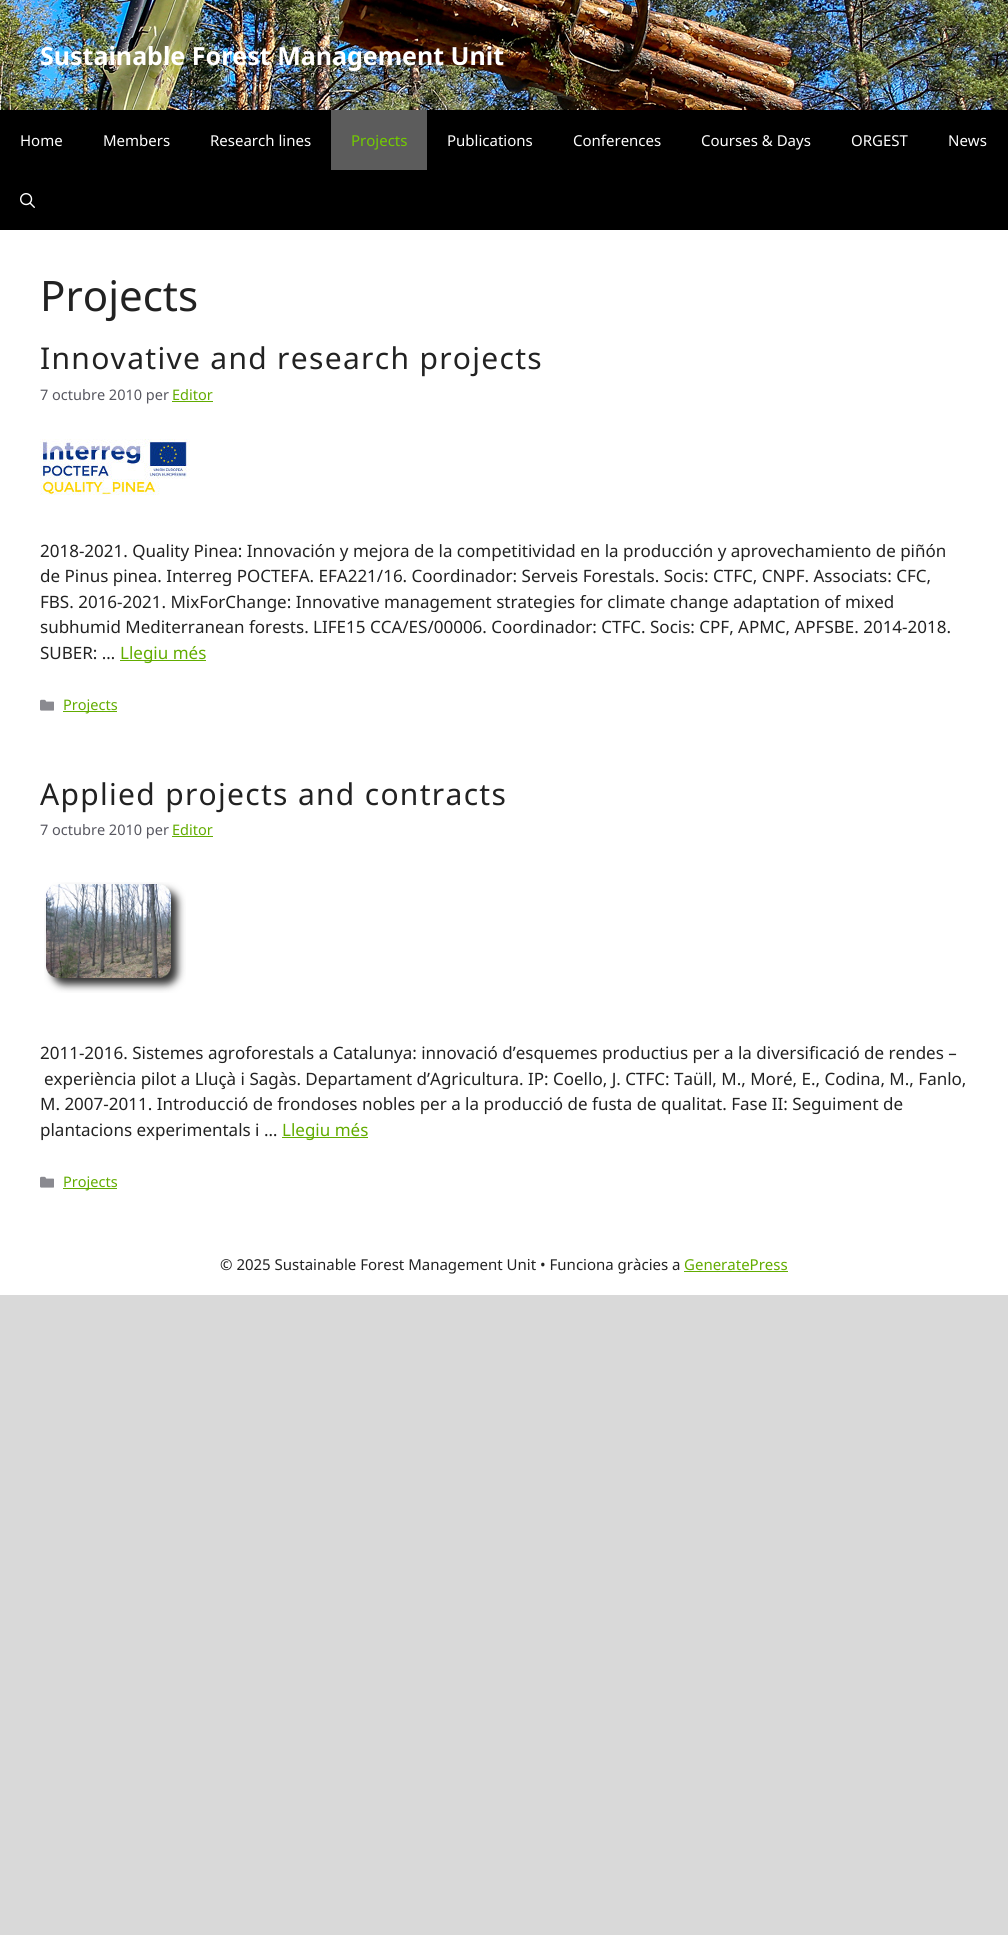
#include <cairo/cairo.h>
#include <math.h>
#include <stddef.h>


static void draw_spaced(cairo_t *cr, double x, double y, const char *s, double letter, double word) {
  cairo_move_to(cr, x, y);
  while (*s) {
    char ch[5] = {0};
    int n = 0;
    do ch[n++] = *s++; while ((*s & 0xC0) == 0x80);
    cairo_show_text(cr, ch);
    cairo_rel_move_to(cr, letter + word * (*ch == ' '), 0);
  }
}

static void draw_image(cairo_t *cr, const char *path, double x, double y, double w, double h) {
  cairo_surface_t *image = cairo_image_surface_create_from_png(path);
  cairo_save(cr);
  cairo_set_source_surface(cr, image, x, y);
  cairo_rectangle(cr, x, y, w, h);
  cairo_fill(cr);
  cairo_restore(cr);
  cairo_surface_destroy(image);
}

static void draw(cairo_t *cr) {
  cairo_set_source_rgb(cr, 217 / 255.0, 217 / 255.0, 217 / 255.0);
  cairo_paint(cr);
  draw_image(cr, "images/1.png", 0, 0, 1008, 110);
  cairo_set_source_rgb(cr, 0, 0, 0);
  cairo_rectangle(cr, 0, 110, 1008, 120);
  cairo_fill(cr);
  cairo_set_source_rgb(cr, 92 / 255.0, 92 / 255.0, 92 / 255.0);
  cairo_rectangle(cr, 331, 110, 96, 60);
  cairo_fill(cr);
  draw_image(cr, "images/2.png", 20, 193, 15, 15);
  cairo_set_source_rgb(cr, 1, 1, 1);
  cairo_rectangle(cr, 0, 230, 1008, 1065);
  cairo_fill(cr);
  cairo_set_source_rgb(cr, 98 / 255.0, 172 / 255.0, 0);
  cairo_rectangle(cr, 172, 401, 41, 1);
  cairo_fill(cr);
  draw_image(cr, "images/3.png", 40, 439, 150, 56);
  cairo_rectangle(cr, 120, 660, 86, 1);
  cairo_fill(cr);
  draw_image(cr, "images/4.png", 40, 699, 14, 12);
  cairo_rectangle(cr, 63, 711, 54, 1);
  cairo_fill(cr);
  cairo_rectangle(cr, 172, 836, 41, 1);
  cairo_fill(cr);
  draw_image(cr, "images/5.png", 44, 882, 142, 111);
  cairo_rectangle(cr, 282, 1137, 86, 1);
  cairo_fill(cr);
  draw_image(cr, "images/4.png", 40, 1176, 14, 12);
  cairo_rectangle(cr, 63, 1188, 54, 1);
  cairo_fill(cr);
  cairo_rectangle(cr, 684, 1271, 104, 1);
  cairo_fill(cr);
  cairo_select_font_face(cr, "Noto Sans", CAIRO_FONT_SLANT_NORMAL, CAIRO_FONT_WEIGHT_BOLD);
  cairo_set_font_size(cr, 25);
  cairo_set_source_rgb(cr, 1, 1, 1);
  cairo_move_to(cr, 40, 65);
  cairo_show_text(cr, "Sustainable Forest Management Unit");
  cairo_select_font_face(cr, "Noto Sans", CAIRO_FONT_SLANT_NORMAL, CAIRO_FONT_WEIGHT_NORMAL);
  cairo_set_font_size(cr, 15);
  cairo_move_to(cr, 20, 146);
  cairo_show_text(cr, "Home");
  cairo_move_to(cr, 103, 146);
  cairo_show_text(cr, "Members");
  cairo_move_to(cr, 210, 146);
  cairo_show_text(cr, "Research lines");
  cairo_set_source_rgb(cr, 115 / 255.0, 203 / 255.0, 0);
  cairo_move_to(cr, 351, 146);
  cairo_show_text(cr, "Projects");
  cairo_set_source_rgb(cr, 1, 1, 1);
  cairo_move_to(cr, 447, 146);
  cairo_show_text(cr, "Publications");
  cairo_move_to(cr, 573, 146);
  cairo_show_text(cr, "Conferences");
  cairo_move_to(cr, 701, 146);
  cairo_show_text(cr, "Courses & Days");
  cairo_move_to(cr, 851, 146);
  cairo_show_text(cr, "ORGEST");
  cairo_move_to(cr, 948, 146);
  cairo_show_text(cr, "News");
  cairo_set_font_size(cr, 42);
  cairo_set_source_rgb(cr, 34 / 255.0, 34 / 255.0, 34 / 255.0);
  cairo_move_to(cr, 40, 311);
  cairo_show_text(cr, "Projects");
  cairo_set_font_size(cr, 30);
  draw_spaced(cr, 40, 369, "Innovative and research projects", 1.3, 0);
  cairo_set_font_size(cr, 14.5);
  cairo_set_source_rgb(cr, 87 / 255.0, 87 / 255.0, 96 / 255.0);
  cairo_move_to(cr, 40, 400);
  cairo_show_text(cr, "7 octubre 2010 per");
  cairo_set_source_rgb(cr, 98 / 255.0, 172 / 255.0, 0);
  cairo_move_to(cr, 172, 400);
  cairo_show_text(cr, "Editor");
  cairo_set_font_size(cr, 17);
  cairo_set_source_rgb(cr, 34 / 255.0, 34 / 255.0, 34 / 255.0);
  cairo_move_to(cr, 40, 557);
  cairo_show_text(cr, "2018-2021. Quality Pinea: Innovación y mejora de la competitividad en la producción y aprovechamiento de piñón");
  cairo_move_to(cr, 40, 582);
  cairo_show_text(cr, "de Pinus pinea. Interreg POCTEFA. EFA221/16. Coordinador: Serveis Forestals. Socis: CTFC, CNPF. Associats: CFC,");
  cairo_move_to(cr, 40, 608);
  cairo_show_text(cr, "FBS. 2016-2021. MixForChange: Innovative management strategies for climate change adaptation of mixed");
  cairo_move_to(cr, 40, 633);
  cairo_show_text(cr, "subhumid Mediterranean forests. LIFE15 CCA/ES/00006. Coordinador: CTFC. Socis: CPF, APMC, APFSBE. 2014-2018.");
  cairo_move_to(cr, 40, 659);
  cairo_show_text(cr, "SUBER: …");
  cairo_set_source_rgb(cr, 98 / 255.0, 172 / 255.0, 0);
  cairo_move_to(cr, 120, 659);
  cairo_show_text(cr, "Llegiu més");
  cairo_set_font_size(cr, 14.5);
  cairo_move_to(cr, 63, 710);
  cairo_show_text(cr, "Projects");
  cairo_set_font_size(cr, 30);
  cairo_set_source_rgb(cr, 34 / 255.0, 34 / 255.0, 34 / 255.0);
  draw_spaced(cr, 40, 805, "Applied projects and contracts", 1.3, 0);
  cairo_set_font_size(cr, 14.5);
  cairo_set_source_rgb(cr, 87 / 255.0, 87 / 255.0, 96 / 255.0);
  cairo_move_to(cr, 40, 835);
  cairo_show_text(cr, "7 octubre 2010 per");
  cairo_set_source_rgb(cr, 98 / 255.0, 172 / 255.0, 0);
  cairo_move_to(cr, 172, 835);
  cairo_show_text(cr, "Editor");
  cairo_set_font_size(cr, 17);
  cairo_set_source_rgb(cr, 34 / 255.0, 34 / 255.0, 34 / 255.0);
  cairo_move_to(cr, 40, 1059);
  cairo_show_text(cr, "2011-2016. Sistemes agroforestals a Catalunya: innovació d’esquemes productius per a la diversificació de rendes –");
  cairo_move_to(cr, 44, 1085);
  cairo_show_text(cr, "experiència pilot a Lluçà i Sagàs. Departament d’Agricultura. IP: Coello, J. CTFC: Taüll, M., Moré, E., Codina, M., Fanlo,");
  cairo_move_to(cr, 40, 1110);
  cairo_show_text(cr, "M. 2007-2011. Introducció de frondoses nobles per a la producció de fusta de qualitat. Fase II: Seguiment de");
  cairo_move_to(cr, 40, 1136);
  cairo_show_text(cr, "plantacions experimentals i …");
  cairo_set_source_rgb(cr, 98 / 255.0, 172 / 255.0, 0);
  cairo_move_to(cr, 282, 1136);
  cairo_show_text(cr, "Llegiu més");
  cairo_set_font_size(cr, 14.5);
  cairo_move_to(cr, 63, 1187);
  cairo_show_text(cr, "Projects");
  cairo_set_font_size(cr, 15);
  cairo_set_source_rgb(cr, 34 / 255.0, 34 / 255.0, 34 / 255.0);
  cairo_move_to(cr, 220, 1270);
  cairo_show_text(cr, "© 2025 Sustainable Forest Management Unit • Funciona gràcies a");
  cairo_set_source_rgb(cr, 98 / 255.0, 172 / 255.0, 0);
  cairo_move_to(cr, 684, 1270);
  cairo_show_text(cr, "GeneratePress");
}

int main(void) {
  cairo_surface_t *surface = cairo_image_surface_create(CAIRO_FORMAT_RGB24, 1008, 1935);
  cairo_t *cr = cairo_create(surface);
  cairo_font_options_t *options = cairo_font_options_create();
  cairo_font_options_set_hint_metrics(options, CAIRO_HINT_METRICS_OFF);
  cairo_font_options_set_hint_style(options, CAIRO_HINT_STYLE_NONE);
  cairo_set_font_options(cr, options);
  cairo_set_miter_limit(cr, 4);
  draw(cr);
  cairo_surface_write_to_png(surface, "out.png");
  cairo_font_options_destroy(options);
  cairo_destroy(cr);
  cairo_surface_destroy(surface);
  return 0;
}
